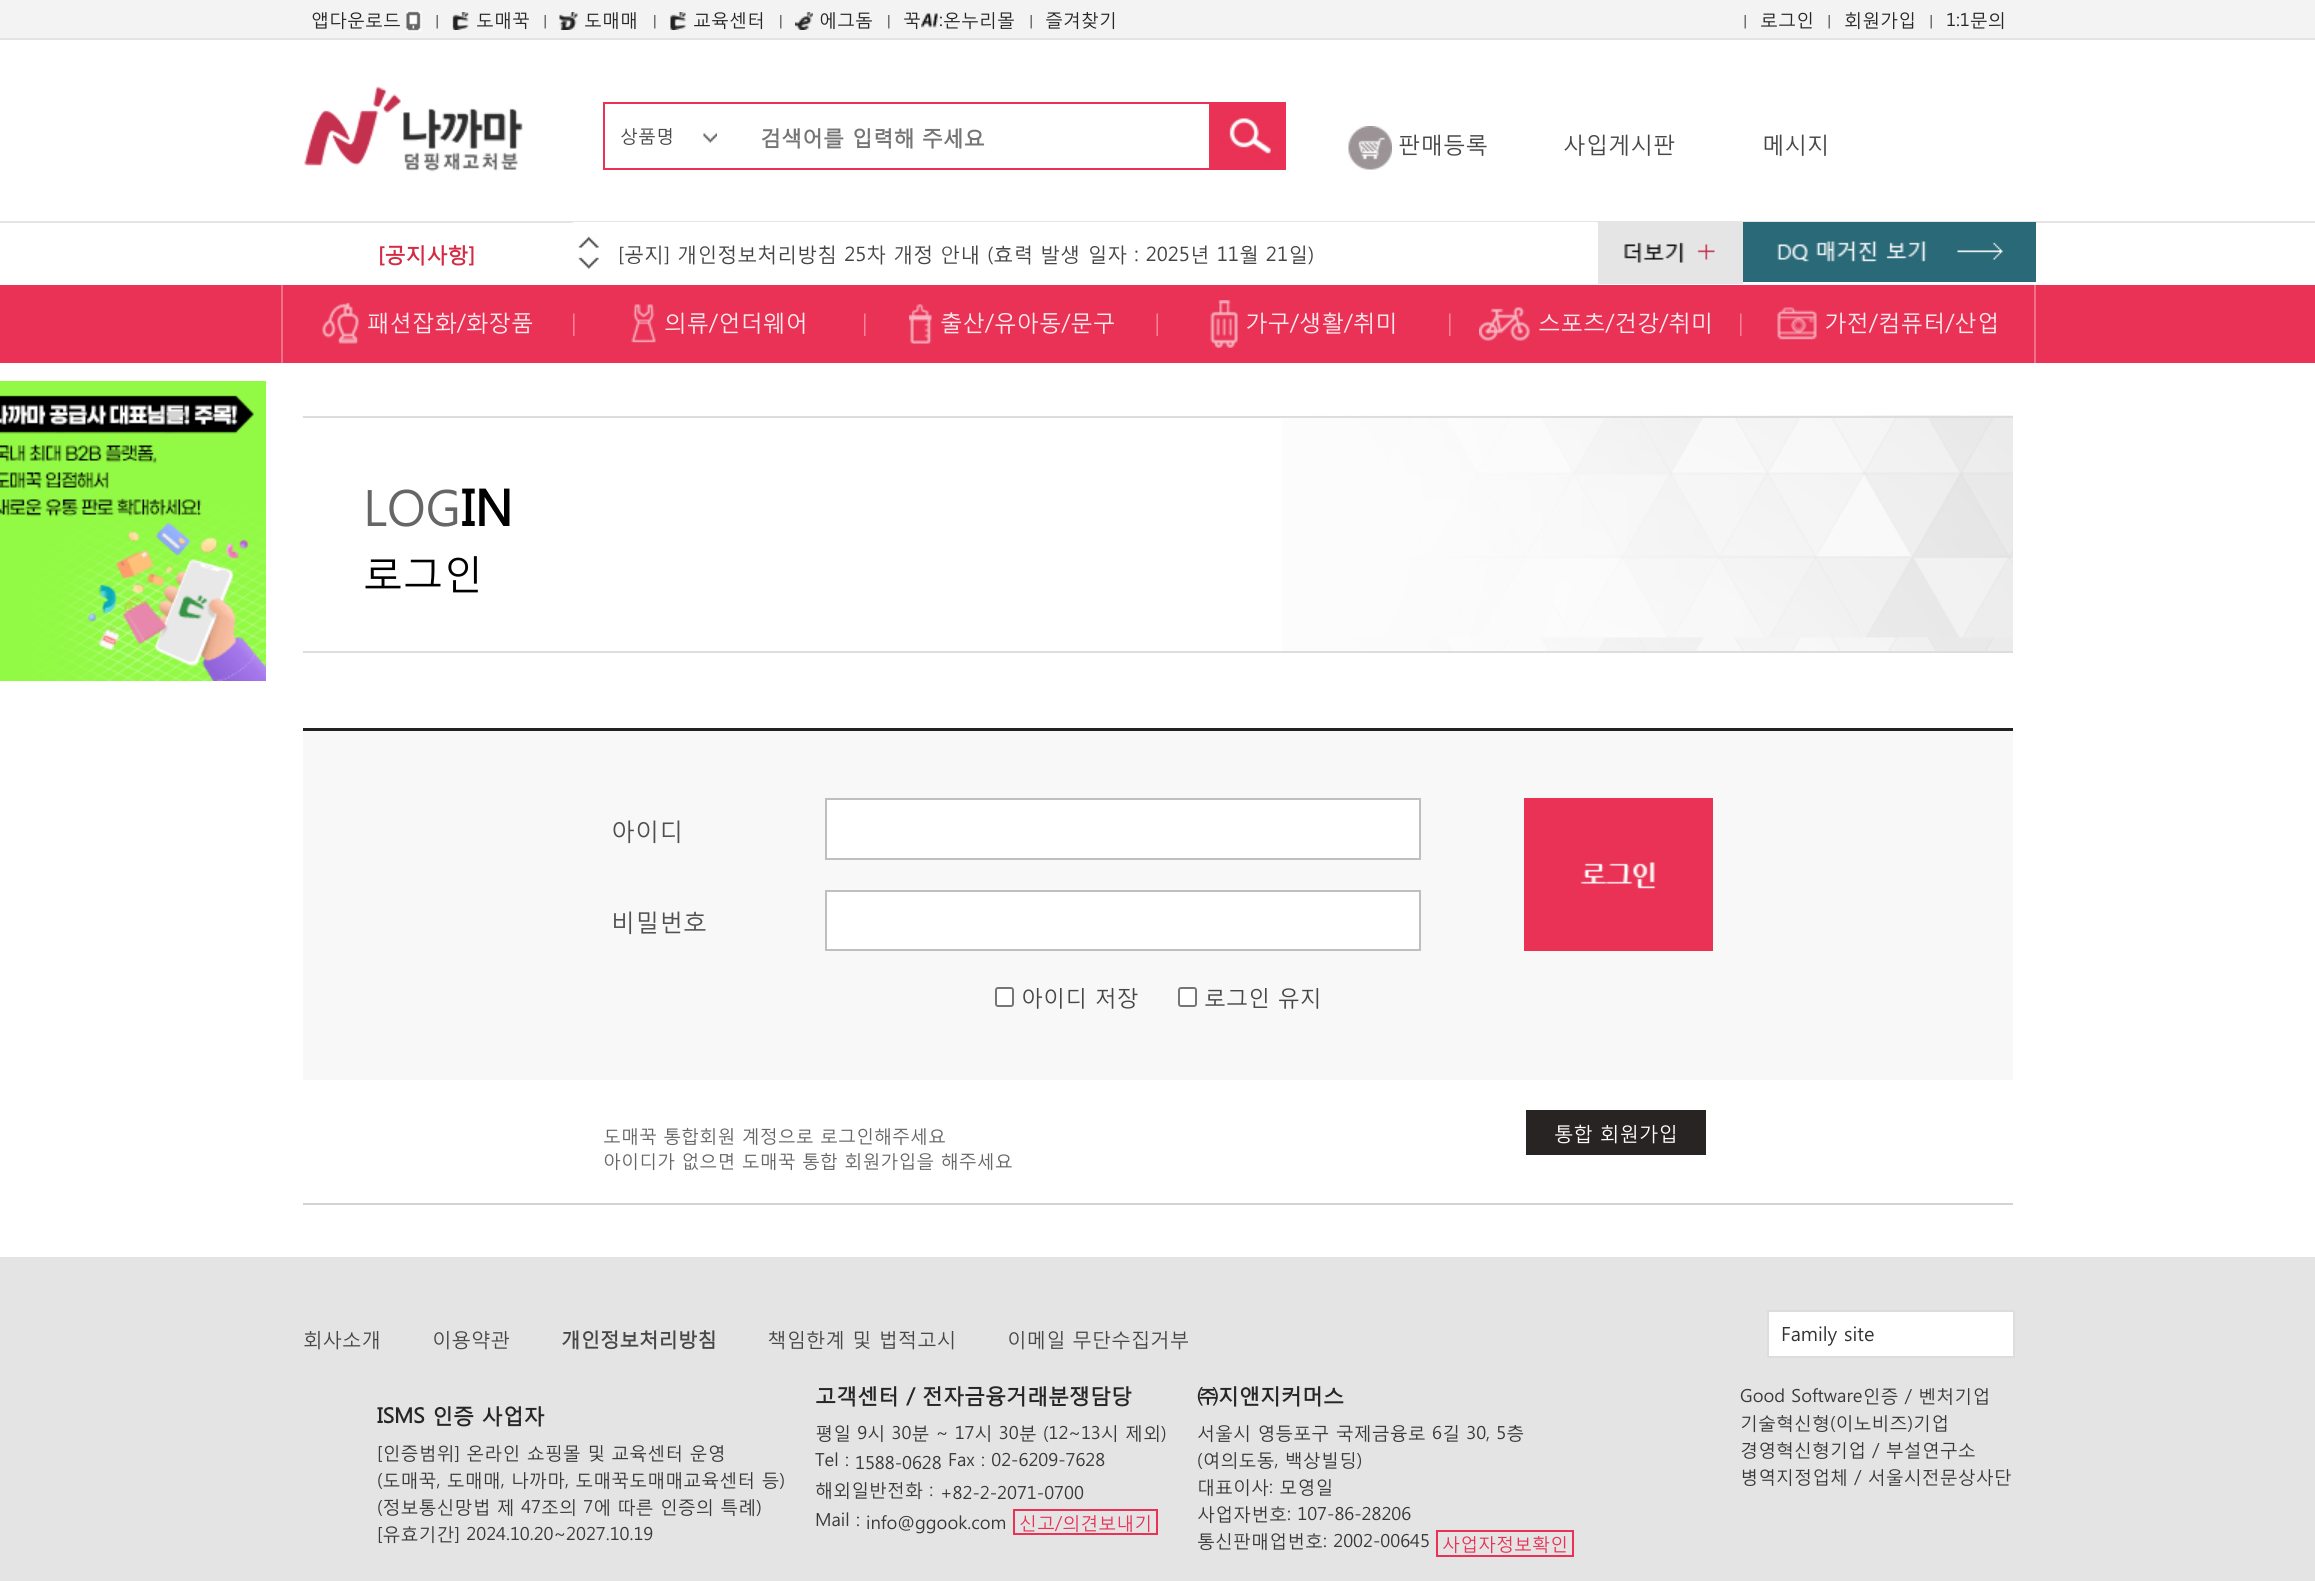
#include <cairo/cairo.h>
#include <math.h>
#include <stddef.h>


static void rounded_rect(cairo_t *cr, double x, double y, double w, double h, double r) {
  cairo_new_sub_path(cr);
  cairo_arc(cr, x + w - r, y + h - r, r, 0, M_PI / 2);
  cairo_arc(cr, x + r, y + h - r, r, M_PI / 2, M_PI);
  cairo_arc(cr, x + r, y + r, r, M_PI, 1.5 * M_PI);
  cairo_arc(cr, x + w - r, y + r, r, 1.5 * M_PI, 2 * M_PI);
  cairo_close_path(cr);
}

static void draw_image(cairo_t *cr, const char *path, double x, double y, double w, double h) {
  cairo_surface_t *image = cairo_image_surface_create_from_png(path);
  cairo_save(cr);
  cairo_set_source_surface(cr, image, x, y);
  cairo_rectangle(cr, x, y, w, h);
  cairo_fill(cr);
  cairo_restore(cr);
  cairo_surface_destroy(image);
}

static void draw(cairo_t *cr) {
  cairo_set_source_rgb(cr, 1, 1, 1);
  cairo_paint(cr);
  cairo_set_source_rgb(cr, 243 / 255.0, 243 / 255.0, 243 / 255.0);
  cairo_rectangle(cr, 0, 0, 2315, 38);
  cairo_fill(cr);
  cairo_set_source_rgb(cr, 228 / 255.0, 228 / 255.0, 228 / 255.0);
  cairo_rectangle(cr, 0, 38, 2315, 2);
  cairo_fill(cr);
  draw_image(cr, "images/1.png", 406, 10, 16, 22);
  draw_image(cr, "images/2.png", 436, 15, 2, 14);
  draw_image(cr, "images/3.png", 452, 12, 17, 18);
  draw_image(cr, "images/2.png", 544, 15, 2, 14);
  draw_image(cr, "images/4.png", 559, 12, 19, 18);
  draw_image(cr, "images/5.png", 654, 15, 2, 14);
  draw_image(cr, "images/6.png", 670, 12, 16, 18);
  draw_image(cr, "images/5.png", 780, 15, 2, 14);
  draw_image(cr, "images/7.png", 795, 12, 18, 18);
  draw_image(cr, "images/5.png", 888, 15, 2, 14);
  draw_image(cr, "images/8.png", 921, 13, 17, 15);
  draw_image(cr, "images/2.png", 1030, 15, 2, 14);
  draw_image(cr, "images/2.png", 1744, 15, 2, 14);
  draw_image(cr, "images/2.png", 1828, 15, 2, 14);
  draw_image(cr, "images/2.png", 1930, 15, 2, 14);
  draw_image(cr, "images/9.png", 304, 86, 219, 86);
  cairo_rectangle(cr, 604, 103, 681, 66);
  cairo_set_source_rgb(cr, 233 / 255.0, 50 / 255.0, 86 / 255.0);
  cairo_stroke(cr);
  draw_image(cr, "images/10.png", 703, 133, 14, 10);
  draw_image(cr, "images/11.png", 1209, 104, 75, 64);
  draw_image(cr, "images/12.png", 1348, 126, 44, 44);
  cairo_set_source_rgb(cr, 229 / 255.0, 229 / 255.0, 229 / 255.0);
  cairo_rectangle(cr, 0, 221, 2315, 2);
  cairo_fill(cr);
  draw_image(cr, "images/13.png", 573, 222, 1025, 47);
  cairo_rectangle(cr, 1598, 223, 145, 61);
  cairo_fill(cr);
  draw_image(cr, "images/14.png", 1624, 242, 91, 21);
  cairo_set_source_rgb(cr, 42 / 255.0, 105 / 255.0, 120 / 255.0);
  cairo_rectangle(cr, 1743, 222, 293, 60);
  cairo_fill(cr);
  draw_image(cr, "images/15.png", 1777, 241, 226, 21);
  cairo_set_source_rgb(cr, 234 / 255.0, 50 / 255.0, 86 / 255.0);
  cairo_rectangle(cr, 0, 285, 2315, 78);
  cairo_fill(cr);
  cairo_set_source_rgb(cr, 240 / 255.0, 112 / 255.0, 137 / 255.0);
  cairo_rectangle(cr, 2034, 285, 2, 78);
  cairo_fill(cr);
  cairo_rectangle(cr, 281, 285, 2, 78);
  cairo_fill(cr);
  draw_image(cr, "images/16.png", 573, 313, 2, 23);
  draw_image(cr, "images/17.png", 322, 302, 37, 42);
  draw_image(cr, "images/16.png", 864, 313, 2, 23);
  draw_image(cr, "images/18.png", 631, 304, 25, 39);
  draw_image(cr, "images/19.png", 1156, 313, 2, 23);
  draw_image(cr, "images/20.png", 909, 304, 23, 40);
  draw_image(cr, "images/16.png", 1449, 313, 2, 23);
  draw_image(cr, "images/21.png", 1210, 300, 28, 48);
  draw_image(cr, "images/16.png", 1740, 313, 2, 23);
  draw_image(cr, "images/22.png", 1479, 307, 51, 34);
  draw_image(cr, "images/23.png", 1777, 307, 40, 33);
  draw_image(cr, "images/24.png", 0, 381, 266, 300);
  draw_image(cr, "images/25.png", 1282, 415, 731, 236);
  cairo_set_source_rgb(cr, 221 / 255.0, 221 / 255.0, 221 / 255.0);
  cairo_rectangle(cr, 303, 416, 1710, 2);
  cairo_fill(cr);
  cairo_rectangle(cr, 303, 651, 1710, 2);
  cairo_fill(cr);
  cairo_set_source_rgb(cr, 248 / 255.0, 248 / 255.0, 248 / 255.0);
  cairo_rectangle(cr, 303, 731, 1710, 349);
  cairo_fill(cr);
  cairo_set_source_rgb(cr, 34 / 255.0, 34 / 255.0, 34 / 255.0);
  cairo_rectangle(cr, 303, 728, 1710, 3);
  cairo_fill(cr);
  cairo_set_source_rgb(cr, 1, 1, 1);
  cairo_rectangle(cr, 826, 799, 594, 60);
  cairo_fill_preserve(cr);
  cairo_set_source_rgb(cr, 191 / 255.0, 191 / 255.0, 191 / 255.0);
  cairo_stroke(cr);
  cairo_set_source_rgb(cr, 1, 1, 1);
  cairo_rectangle(cr, 826, 891, 594, 59);
  cairo_fill_preserve(cr);
  cairo_set_source_rgb(cr, 191 / 255.0, 191 / 255.0, 191 / 255.0);
  cairo_stroke(cr);
  draw_image(cr, "images/26.png", 1524, 798, 189, 153);
  cairo_set_source_rgb(cr, 1, 1, 1);
  rounded_rect(cr, 996, 988, 17, 18, 2);
  cairo_fill_preserve(cr);
  cairo_set_source_rgb(cr, 118 / 255.0, 118 / 255.0, 118 / 255.0);
  cairo_stroke(cr);
  cairo_set_source_rgb(cr, 1, 1, 1);
  rounded_rect(cr, 1179, 988, 17, 18, 2);
  cairo_fill_preserve(cr);
  cairo_set_source_rgb(cr, 118 / 255.0, 118 / 255.0, 118 / 255.0);
  cairo_stroke(cr);
  cairo_set_source_rgb(cr, 211 / 255.0, 211 / 255.0, 211 / 255.0);
  cairo_rectangle(cr, 303, 1203, 1710, 2);
  cairo_fill(cr);
  cairo_set_source_rgb(cr, 39 / 255.0, 36 / 255.0, 35 / 255.0);
  cairo_rectangle(cr, 1526, 1110, 180, 45);
  cairo_fill(cr);
  cairo_set_source_rgb(cr, 228 / 255.0, 228 / 255.0, 228 / 255.0);
  cairo_rectangle(cr, 0, 1257, 2315, 324);
  cairo_fill(cr);
  cairo_set_source_rgb(cr, 1, 1, 1);
  cairo_rectangle(cr, 1768, 1311, 246, 46);
  cairo_fill_preserve(cr);
  cairo_set_source_rgb(cr, 221 / 255.0, 221 / 255.0, 221 / 255.0);
  cairo_stroke(cr);
  cairo_rectangle(cr, 1014, 1510, 143, 24);
  cairo_set_source_rgb(cr, 233 / 255.0, 50 / 255.0, 86 / 255.0);
  cairo_stroke(cr);
  cairo_rectangle(cr, 1437, 1531, 136, 25);
  cairo_stroke(cr);
  cairo_select_font_face(cr, "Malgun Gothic", CAIRO_FONT_SLANT_NORMAL, CAIRO_FONT_WEIGHT_NORMAL);
  cairo_set_font_size(cr, 18);
  cairo_set_source_rgb(cr, 38 / 255.0, 38 / 255.0, 38 / 255.0);
  cairo_move_to(cr, 311, 26);
  cairo_show_text(cr, "앱다운로드");
  cairo_move_to(cr, 476, 26);
  cairo_show_text(cr, "도매꾹");
  cairo_move_to(cr, 584, 26);
  cairo_show_text(cr, "도매매");
  cairo_move_to(cr, 693, 26);
  cairo_show_text(cr, "교육센터");
  cairo_move_to(cr, 819, 26);
  cairo_show_text(cr, "에그돔");
  cairo_move_to(cr, 903, 26);
  cairo_show_text(cr, "꾹");
  cairo_move_to(cr, 939, 26);
  cairo_show_text(cr, ":온누리몰");
  cairo_move_to(cr, 1045, 26);
  cairo_show_text(cr, "즐겨찾기");
  cairo_move_to(cr, 1760, 26);
  cairo_show_text(cr, "로그인");
  cairo_move_to(cr, 1844, 26);
  cairo_show_text(cr, "회원가입");
  cairo_move_to(cr, 1946, 26);
  cairo_show_text(cr, "1:1문의");
  cairo_set_source_rgb(cr, 72 / 255.0, 71 / 255.0, 71 / 255.0);
  cairo_move_to(cr, 620, 142);
  cairo_show_text(cr, "상품명");
  cairo_select_font_face(cr, "Malgun Gothic", CAIRO_FONT_SLANT_NORMAL, CAIRO_FONT_WEIGHT_BOLD);
  cairo_set_font_size(cr, 21);
  cairo_set_source_rgb(cr, 117 / 255.0, 117 / 255.0, 117 / 255.0);
  cairo_move_to(cr, 760, 145);
  cairo_show_text(cr, "검색어를 입력해 주세요");
  cairo_select_font_face(cr, "Malgun Gothic", CAIRO_FONT_SLANT_NORMAL, CAIRO_FONT_WEIGHT_NORMAL);
  cairo_set_font_size(cr, 22.5);
  cairo_set_source_rgb(cr, 72 / 255.0, 71 / 255.0, 71 / 255.0);
  cairo_move_to(cr, 1398, 152);
  cairo_show_text(cr, "판매등록");
  cairo_move_to(cr, 1563, 152);
  cairo_show_text(cr, "사입게시판");
  cairo_move_to(cr, 1762, 152);
  cairo_show_text(cr, "메시지");
  cairo_select_font_face(cr, "Malgun Gothic", CAIRO_FONT_SLANT_NORMAL, CAIRO_FONT_WEIGHT_BOLD);
  cairo_set_font_size(cr, 21);
  cairo_set_source_rgb(cr, 211 / 255.0, 43 / 255.0, 68 / 255.0);
  cairo_move_to(cr, 378, 262);
  cairo_show_text(cr, "[공지사항]");
  cairo_select_font_face(cr, "Malgun Gothic", CAIRO_FONT_SLANT_NORMAL, CAIRO_FONT_WEIGHT_NORMAL);
  cairo_set_font_size(cr, 22.5);
  cairo_set_source_rgb(cr, 253 / 255.0, 235 / 255.0, 238 / 255.0);
  cairo_move_to(cr, 367, 330);
  cairo_show_text(cr, "패션잡화/화장품");
  cairo_move_to(cr, 664, 330);
  cairo_show_text(cr, "의류/언더웨어");
  cairo_move_to(cr, 940, 330);
  cairo_show_text(cr, "출산/유아동/문구");
  cairo_move_to(cr, 1245, 330);
  cairo_show_text(cr, "가구/생활/취미");
  cairo_move_to(cr, 1538, 330);
  cairo_show_text(cr, "스포츠/건강/취미");
  cairo_move_to(cr, 1824, 330);
  cairo_show_text(cr, "가전/컴퓨터/산업");
  cairo_set_font_size(cr, 50);
  cairo_set_source_rgb(cr, 102 / 255.0, 102 / 255.0, 102 / 255.0);
  cairo_move_to(cr, 363, 526);
  cairo_show_text(cr, "LOG");
  cairo_select_font_face(cr, "Malgun Gothic", CAIRO_FONT_SLANT_NORMAL, CAIRO_FONT_WEIGHT_BOLD);
  cairo_set_source_rgb(cr, 0, 0, 0);
  cairo_move_to(cr, 461, 526);
  cairo_show_text(cr, "IN");
  cairo_select_font_face(cr, "Malgun Gothic", CAIRO_FONT_SLANT_NORMAL, CAIRO_FONT_WEIGHT_NORMAL);
  cairo_set_font_size(cr, 40);
  cairo_move_to(cr, 363, 587);
  cairo_show_text(cr, "로그인");
  cairo_set_font_size(cr, 24);
  cairo_set_source_rgb(cr, 79 / 255.0, 79 / 255.0, 79 / 255.0);
  cairo_move_to(cr, 611, 839);
  cairo_show_text(cr, "아이디");
  cairo_move_to(cr, 611, 930);
  cairo_show_text(cr, "비밀번호");
  cairo_set_font_size(cr, 22);
  cairo_set_source_rgb(cr, 72 / 255.0, 71 / 255.0, 71 / 255.0);
  cairo_move_to(cr, 1021, 1005);
  cairo_show_text(cr, "아이디 저장");
  cairo_move_to(cr, 1204, 1005);
  cairo_show_text(cr, "로그인 유지");
  cairo_set_font_size(cr, 18);
  cairo_set_source_rgb(cr, 102 / 255.0, 102 / 255.0, 102 / 255.0);
  cairo_move_to(cr, 603, 1142);
  cairo_show_text(cr, "도매꾹 통합회원 계정으로 로그인해주세요");
  cairo_move_to(cr, 603, 1167);
  cairo_show_text(cr, "아이디가 없으면 도매꾹 통합 회원가입을 해주세요");
  cairo_set_font_size(cr, 19.5);
  cairo_set_source_rgb(cr, 1, 1, 1);
  cairo_move_to(cr, 1554, 1140);
  cairo_show_text(cr, "통합 회원가입");
  cairo_set_source_rgb(cr, 72 / 255.0, 71 / 255.0, 71 / 255.0);
  cairo_move_to(cr, 303, 1346);
  cairo_show_text(cr, "회사소개");
  cairo_move_to(cr, 432, 1346);
  cairo_show_text(cr, "이용약관");
  cairo_select_font_face(cr, "Malgun Gothic", CAIRO_FONT_SLANT_NORMAL, CAIRO_FONT_WEIGHT_BOLD);
  cairo_move_to(cr, 561, 1346);
  cairo_show_text(cr, "개인정보처리방침");
  cairo_select_font_face(cr, "Malgun Gothic", CAIRO_FONT_SLANT_NORMAL, CAIRO_FONT_WEIGHT_NORMAL);
  cairo_move_to(cr, 767, 1346);
  cairo_show_text(cr, "책임한계 및 법적고시");
  cairo_move_to(cr, 1007, 1346);
  cairo_show_text(cr, "이메일 무단수집거부");
  cairo_set_source_rgb(cr, 51 / 255.0, 51 / 255.0, 51 / 255.0);
  cairo_move_to(cr, 1781, 1341);
  cairo_show_text(cr, "Family site");
  cairo_select_font_face(cr, "Malgun Gothic", CAIRO_FONT_SLANT_NORMAL, CAIRO_FONT_WEIGHT_BOLD);
  cairo_set_font_size(cr, 21);
  cairo_set_source_rgb(cr, 38 / 255.0, 38 / 255.0, 38 / 255.0);
  cairo_move_to(cr, 377, 1423);
  cairo_show_text(cr, "ISMS 인증 사업자");
  cairo_select_font_face(cr, "Malgun Gothic", CAIRO_FONT_SLANT_NORMAL, CAIRO_FONT_WEIGHT_NORMAL);
  cairo_set_font_size(cr, 18);
  cairo_set_source_rgb(cr, 57 / 255.0, 57 / 255.0, 57 / 255.0);
  cairo_move_to(cr, 377, 1459);
  cairo_show_text(cr, "[인증범위] 온라인 쇼핑몰 및 교육센터 운영");
  cairo_move_to(cr, 377, 1486);
  cairo_show_text(cr, "(도매꾹, 도매매, 나까마, 도매꾹도매매교육센터 등)");
  cairo_move_to(cr, 377, 1513);
  cairo_show_text(cr, "(정보통신망법 제 47조의 7에 따른 인증의 특례)");
  cairo_move_to(cr, 377, 1540);
  cairo_show_text(cr, "[유효기간] 2024.10.20~2027.10.19");
  cairo_select_font_face(cr, "Malgun Gothic", CAIRO_FONT_SLANT_NORMAL, CAIRO_FONT_WEIGHT_BOLD);
  cairo_set_font_size(cr, 21);
  cairo_set_source_rgb(cr, 38 / 255.0, 38 / 255.0, 38 / 255.0);
  cairo_move_to(cr, 815, 1403);
  cairo_show_text(cr, "고객센터 / 전자금융거래분쟁담당");
  cairo_select_font_face(cr, "Malgun Gothic", CAIRO_FONT_SLANT_NORMAL, CAIRO_FONT_WEIGHT_NORMAL);
  cairo_set_font_size(cr, 18);
  cairo_set_source_rgb(cr, 57 / 255.0, 57 / 255.0, 57 / 255.0);
  cairo_move_to(cr, 815, 1439);
  cairo_show_text(cr, "평일 9시 30분 ~ 17시 30분 (12~13시 제외)");
  cairo_move_to(cr, 815, 1466);
  cairo_show_text(cr, "Tel :");
  cairo_move_to(cr, 855, 1469);
  cairo_show_text(cr, "1588-0628");
  cairo_move_to(cr, 948, 1466);
  cairo_show_text(cr, "Fax : 02-6209-7628");
  cairo_move_to(cr, 815, 1496);
  cairo_show_text(cr, "해외일반전화 :");
  cairo_move_to(cr, 940, 1499);
  cairo_show_text(cr, "+82-2-2071-0700");
  cairo_move_to(cr, 815, 1526);
  cairo_show_text(cr, "Mail :");
  cairo_move_to(cr, 866, 1529);
  cairo_show_text(cr, "info@ggook.com");
  cairo_set_source_rgb(cr, 233 / 255.0, 50 / 255.0, 86 / 255.0);
  cairo_move_to(cr, 1019, 1529);
  cairo_show_text(cr, "신고/의견보내기");
  cairo_select_font_face(cr, "Malgun Gothic", CAIRO_FONT_SLANT_NORMAL, CAIRO_FONT_WEIGHT_BOLD);
  cairo_set_font_size(cr, 21);
  cairo_set_source_rgb(cr, 38 / 255.0, 38 / 255.0, 38 / 255.0);
  cairo_move_to(cr, 1197, 1403);
  cairo_show_text(cr, "㈜지앤지커머스");
  cairo_select_font_face(cr, "Malgun Gothic", CAIRO_FONT_SLANT_NORMAL, CAIRO_FONT_WEIGHT_NORMAL);
  cairo_set_font_size(cr, 18);
  cairo_set_source_rgb(cr, 57 / 255.0, 57 / 255.0, 57 / 255.0);
  cairo_move_to(cr, 1197, 1439);
  cairo_show_text(cr, "서울시 영등포구 국제금융로 6길 30, 5층");
  cairo_move_to(cr, 1197, 1466);
  cairo_show_text(cr, "(여의도동, 백상빌딩)");
  cairo_move_to(cr, 1197, 1493);
  cairo_show_text(cr, "대표이사: 모영일");
  cairo_move_to(cr, 1197, 1520);
  cairo_show_text(cr, "사업자번호: 107-86-28206");
  cairo_move_to(cr, 1197, 1547);
  cairo_show_text(cr, "통신판매업번호: 2002-00645");
  cairo_set_source_rgb(cr, 233 / 255.0, 50 / 255.0, 86 / 255.0);
  cairo_move_to(cr, 1442, 1550);
  cairo_show_text(cr, "사업자정보확인");
  cairo_set_source_rgb(cr, 57 / 255.0, 57 / 255.0, 57 / 255.0);
  cairo_move_to(cr, 1740, 1402);
  cairo_show_text(cr, "Good Software인증 / 벤처기업");
  cairo_move_to(cr, 1740, 1429);
  cairo_show_text(cr, "기술혁신형(이노비즈)기업");
  cairo_move_to(cr, 1740, 1456);
  cairo_show_text(cr, "경영혁신형기업 / 부설연구소");
  cairo_move_to(cr, 1740, 1483);
  cairo_show_text(cr, "병역지정업체 / 서울시전문상사단");
}

int main(void) {
  cairo_surface_t *surface = cairo_image_surface_create(CAIRO_FORMAT_RGB24, 2315, 1581);
  cairo_t *cr = cairo_create(surface);
  cairo_font_options_t *options = cairo_font_options_create();
  cairo_font_options_set_hint_metrics(options, CAIRO_HINT_METRICS_OFF);
  cairo_font_options_set_hint_style(options, CAIRO_HINT_STYLE_NONE);
  cairo_set_font_options(cr, options);
  cairo_set_miter_limit(cr, 4);
  draw(cr);
  cairo_surface_write_to_png(surface, "out.png");
  cairo_font_options_destroy(options);
  cairo_destroy(cr);
  cairo_surface_destroy(surface);
  return 0;
}
